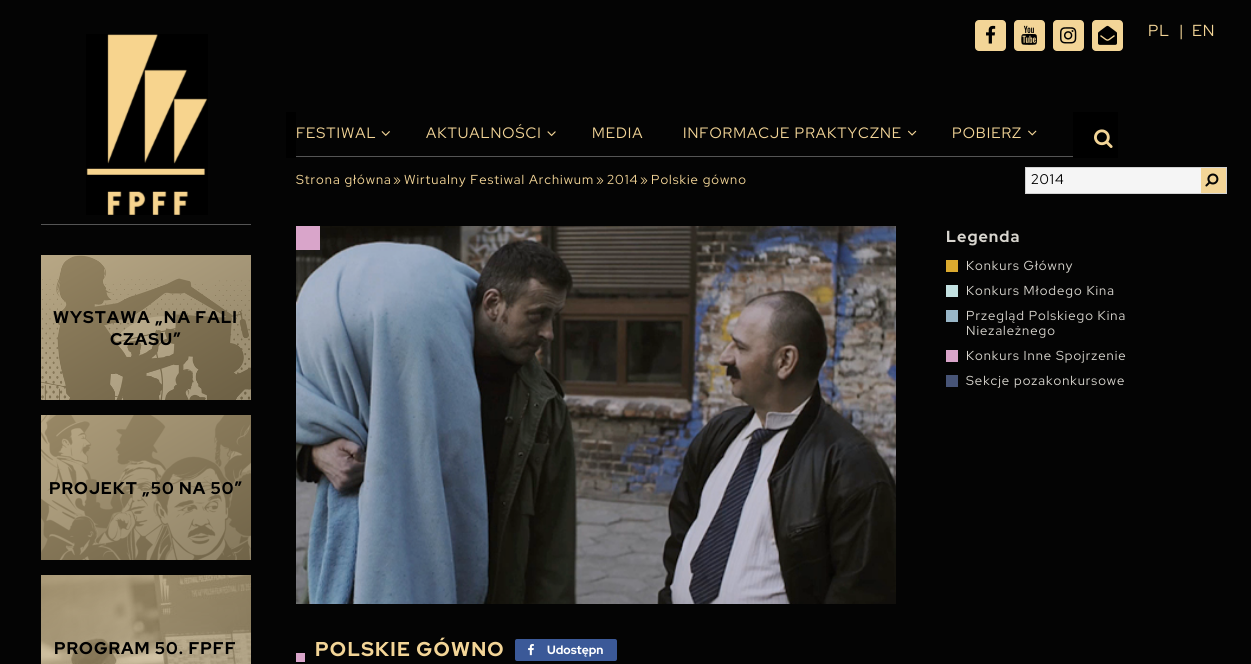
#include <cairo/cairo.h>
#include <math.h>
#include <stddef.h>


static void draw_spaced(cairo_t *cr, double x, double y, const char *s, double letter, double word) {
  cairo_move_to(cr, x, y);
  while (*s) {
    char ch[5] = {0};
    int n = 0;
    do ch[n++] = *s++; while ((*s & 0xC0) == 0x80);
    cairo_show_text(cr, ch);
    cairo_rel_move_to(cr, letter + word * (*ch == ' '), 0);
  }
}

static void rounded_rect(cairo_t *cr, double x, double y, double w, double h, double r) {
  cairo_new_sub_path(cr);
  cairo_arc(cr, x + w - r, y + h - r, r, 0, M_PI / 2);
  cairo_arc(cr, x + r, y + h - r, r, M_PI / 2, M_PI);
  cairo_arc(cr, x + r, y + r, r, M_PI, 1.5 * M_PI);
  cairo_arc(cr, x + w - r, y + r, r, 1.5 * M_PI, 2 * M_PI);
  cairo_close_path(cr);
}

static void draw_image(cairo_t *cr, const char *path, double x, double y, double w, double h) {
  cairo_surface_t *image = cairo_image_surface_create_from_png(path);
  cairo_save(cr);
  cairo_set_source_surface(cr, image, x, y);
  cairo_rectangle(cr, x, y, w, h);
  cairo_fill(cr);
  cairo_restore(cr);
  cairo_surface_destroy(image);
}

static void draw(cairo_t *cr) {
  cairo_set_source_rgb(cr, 4 / 255.0, 4 / 255.0, 4 / 255.0);
  cairo_paint(cr);
  draw_image(cr, "images/1.png", 86, 34, 122, 181);
  cairo_set_source_rgb(cr, 85 / 255.0, 85 / 255.0, 85 / 255.0);
  cairo_rectangle(cr, 41, 224, 210, 1);
  cairo_fill(cr);
  draw_image(cr, "images/2.png", 41, 255, 210, 145);
  draw_image(cr, "images/3.png", 41, 415, 210, 145);
  draw_image(cr, "images/4.png", 41, 575, 210, 89);
  cairo_set_source_rgb(cr, 243 / 255.0, 213 / 255.0, 151 / 255.0);
  rounded_rect(cr, 975, 20, 31, 31, 4);
  cairo_fill(cr);
  draw_image(cr, "images/5.png", 986, 25, 10, 19);
  rounded_rect(cr, 1014, 20, 31, 31, 4);
  cairo_fill(cr);
  draw_image(cr, "images/6.png", 1021, 25, 16, 20);
  rounded_rect(cr, 1053, 20, 31, 31, 4);
  cairo_fill(cr);
  draw_image(cr, "images/7.png", 1060, 27, 17, 17);
  rounded_rect(cr, 1092, 20, 31, 31, 4);
  cairo_fill(cr);
  draw_image(cr, "images/8.png", 1098, 25, 19, 20);
  cairo_set_source_rgb(cr, 0, 0, 0);
  cairo_rectangle(cr, 286, 112, 832, 46);
  cairo_fill(cr);
  cairo_set_source_rgb(cr, 4 / 255.0, 4 / 255.0, 4 / 255.0);
  cairo_rectangle(cr, 296, 112, 777, 46);
  cairo_fill(cr);
  draw_image(cr, "images/9.png", 381, 131, 9, 5);
  draw_image(cr, "images/10.png", 547, 131, 9, 6);
  draw_image(cr, "images/11.png", 908, 130, 9, 6);
  draw_image(cr, "images/12.png", 1028, 130, 9, 6);
  cairo_set_source_rgb(cr, 85 / 255.0, 85 / 255.0, 85 / 255.0);
  cairo_rectangle(cr, 296, 156, 777, 1);
  cairo_fill(cr);
  draw_image(cr, "images/13.png", 1094, 129, 19, 19);
  cairo_rectangle(cr, 1025.5, 167.5, 201, 26);
  cairo_set_source_rgb(cr, 210 / 255.0, 210 / 255.0, 210 / 255.0);
  cairo_set_line_width(cr, 1);
  cairo_stroke(cr);
  cairo_set_source_rgb(cr, 245 / 255.0, 245 / 255.0, 245 / 255.0);
  cairo_rectangle(cr, 1026, 168, 175, 25);
  cairo_fill(cr);
  cairo_set_source_rgb(cr, 243 / 255.0, 213 / 255.0, 151 / 255.0);
  cairo_rectangle(cr, 1201, 168, 25, 25);
  cairo_fill(cr);
  draw_image(cr, "images/14.png", 1205, 173, 14, 14);
  cairo_set_source_rgb(cr, 219 / 255.0, 170 / 255.0, 47 / 255.0);
  cairo_rectangle(cr, 946, 260, 12, 12);
  cairo_fill(cr);
  cairo_set_source_rgb(cr, 195 / 255.0, 225 / 255.0, 225 / 255.0);
  cairo_rectangle(cr, 946, 285, 12, 12);
  cairo_fill(cr);
  cairo_set_source_rgb(cr, 153 / 255.0, 183 / 255.0, 200 / 255.0);
  cairo_rectangle(cr, 946, 310, 12, 12);
  cairo_fill(cr);
  cairo_set_source_rgb(cr, 217 / 255.0, 165 / 255.0, 202 / 255.0);
  cairo_rectangle(cr, 946, 350, 12, 12);
  cairo_fill(cr);
  cairo_set_source_rgb(cr, 71 / 255.0, 84 / 255.0, 119 / 255.0);
  cairo_rectangle(cr, 946, 375, 12, 12);
  cairo_fill(cr);
  draw_image(cr, "images/15.png", 296, 226, 600, 378);
  cairo_set_source_rgb(cr, 217 / 255.0, 165 / 255.0, 202 / 255.0);
  cairo_rectangle(cr, 296, 226, 24, 24);
  cairo_fill(cr);
  cairo_rectangle(cr, 296, 653, 9, 9);
  cairo_fill(cr);
  cairo_set_source_rgb(cr, 59 / 255.0, 89 / 255.0, 152 / 255.0);
  rounded_rect(cr, 515, 639, 102, 22, 2);
  cairo_fill(cr);
  draw_image(cr, "images/16.png", 528, 644, 6, 12);
  cairo_select_font_face(cr, "Red Hat Display", CAIRO_FONT_SLANT_NORMAL, CAIRO_FONT_WEIGHT_BOLD);
  cairo_set_font_size(cr, 17);
  cairo_set_source_rgb(cr, 0, 0, 0);
  draw_spaced(cr, 53, 323, "WYSTAWA „NA FALI", 1, 0);
  draw_spaced(cr, 110, 345, "CZASU”", 1, 0);
  draw_spaced(cr, 49, 494, "PROJEKT „50 NA 50”", 1, 0);
  draw_spaced(cr, 54, 654, "PROGRAM 50. FPFF", 1, 0);
  cairo_select_font_face(cr, "Red Hat Display", CAIRO_FONT_SLANT_NORMAL, CAIRO_FONT_WEIGHT_NORMAL);
  cairo_set_font_size(cr, 16);
  cairo_set_source_rgb(cr, 243 / 255.0, 213 / 255.0, 151 / 255.0);
  draw_spaced(cr, 1148, 36, "PL", 1, 0);
  draw_spaced(cr, 1179, 36, "|", 1, 0);
  draw_spaced(cr, 1192, 36, "EN", 1, 0);
  cairo_set_font_size(cr, 15);
  draw_spaced(cr, 296, 138, "FESTIWAL", 1, 0);
  draw_spaced(cr, 426, 138, "AKTUALNOŚCI", 1, 0);
  draw_spaced(cr, 592, 138, "MEDIA", 1, 0);
  draw_spaced(cr, 683, 138, "INFORMACJE PRAKTYCZNE", 1, 0);
  draw_spaced(cr, 952, 138, "POBIERZ", 1, 0);
  cairo_set_font_size(cr, 13);
  draw_spaced(cr, 296, 184, "Strona główna", 1, 0);
  draw_spaced(cr, 393, 184, "»", 1, 0);
  draw_spaced(cr, 404, 184, "Wirtualny Festiwal Archiwum", 1, 0);
  draw_spaced(cr, 596, 184, "»", 1, 0);
  draw_spaced(cr, 607, 184, "2014", 1, 0);
  draw_spaced(cr, 640, 184, "»", 1, 0);
  draw_spaced(cr, 651, 184, "Polskie gówno", 1, 0);
  cairo_set_font_size(cr, 14);
  cairo_set_source_rgb(cr, 0, 0, 0);
  draw_spaced(cr, 1031, 184, "2014", 1, 0);
  cairo_select_font_face(cr, "Red Hat Display", CAIRO_FONT_SLANT_NORMAL, CAIRO_FONT_WEIGHT_BOLD);
  cairo_set_font_size(cr, 16);
  cairo_set_source_rgb(cr, 216 / 255.0, 213 / 255.0, 206 / 255.0);
  draw_spaced(cr, 946, 242, "Legenda", 1, 0);
  cairo_select_font_face(cr, "Red Hat Display", CAIRO_FONT_SLANT_NORMAL, CAIRO_FONT_WEIGHT_NORMAL);
  cairo_set_font_size(cr, 13);
  draw_spaced(cr, 966, 270, "Konkurs Główny", 1, 0);
  draw_spaced(cr, 966, 295, "Konkurs Młodego Kina", 1, 0);
  draw_spaced(cr, 966, 320, "Przegląd Polskiego Kina", 1, 0);
  draw_spaced(cr, 966, 335, "Niezależnego", 1, 0);
  draw_spaced(cr, 966, 360, "Konkurs Inne Spojrzenie", 1, 0);
  draw_spaced(cr, 966, 385, "Sekcje pozakonkursowe", 1, 0);
  cairo_select_font_face(cr, "Red Hat Display", CAIRO_FONT_SLANT_NORMAL, CAIRO_FONT_WEIGHT_BOLD);
  cairo_set_font_size(cr, 20);
  cairo_set_source_rgb(cr, 243 / 255.0, 213 / 255.0, 151 / 255.0);
  draw_spaced(cr, 315, 656, "POLSKIE GÓWNO", 1.25, 0);
  cairo_set_font_size(cr, 12);
  cairo_set_source_rgb(cr, 1, 1, 1);
  cairo_move_to(cr, 547, 654);
  cairo_show_text(cr, "Udostępn");
}

int main(void) {
  cairo_surface_t *surface = cairo_image_surface_create(CAIRO_FORMAT_RGB24, 1251, 664);
  cairo_t *cr = cairo_create(surface);
  cairo_font_options_t *options = cairo_font_options_create();
  cairo_font_options_set_hint_metrics(options, CAIRO_HINT_METRICS_OFF);
  cairo_font_options_set_hint_style(options, CAIRO_HINT_STYLE_NONE);
  cairo_set_font_options(cr, options);
  cairo_set_miter_limit(cr, 4);
  draw(cr);
  cairo_surface_write_to_png(surface, "out.png");
  cairo_font_options_destroy(options);
  cairo_destroy(cr);
  cairo_surface_destroy(surface);
  return 0;
}
